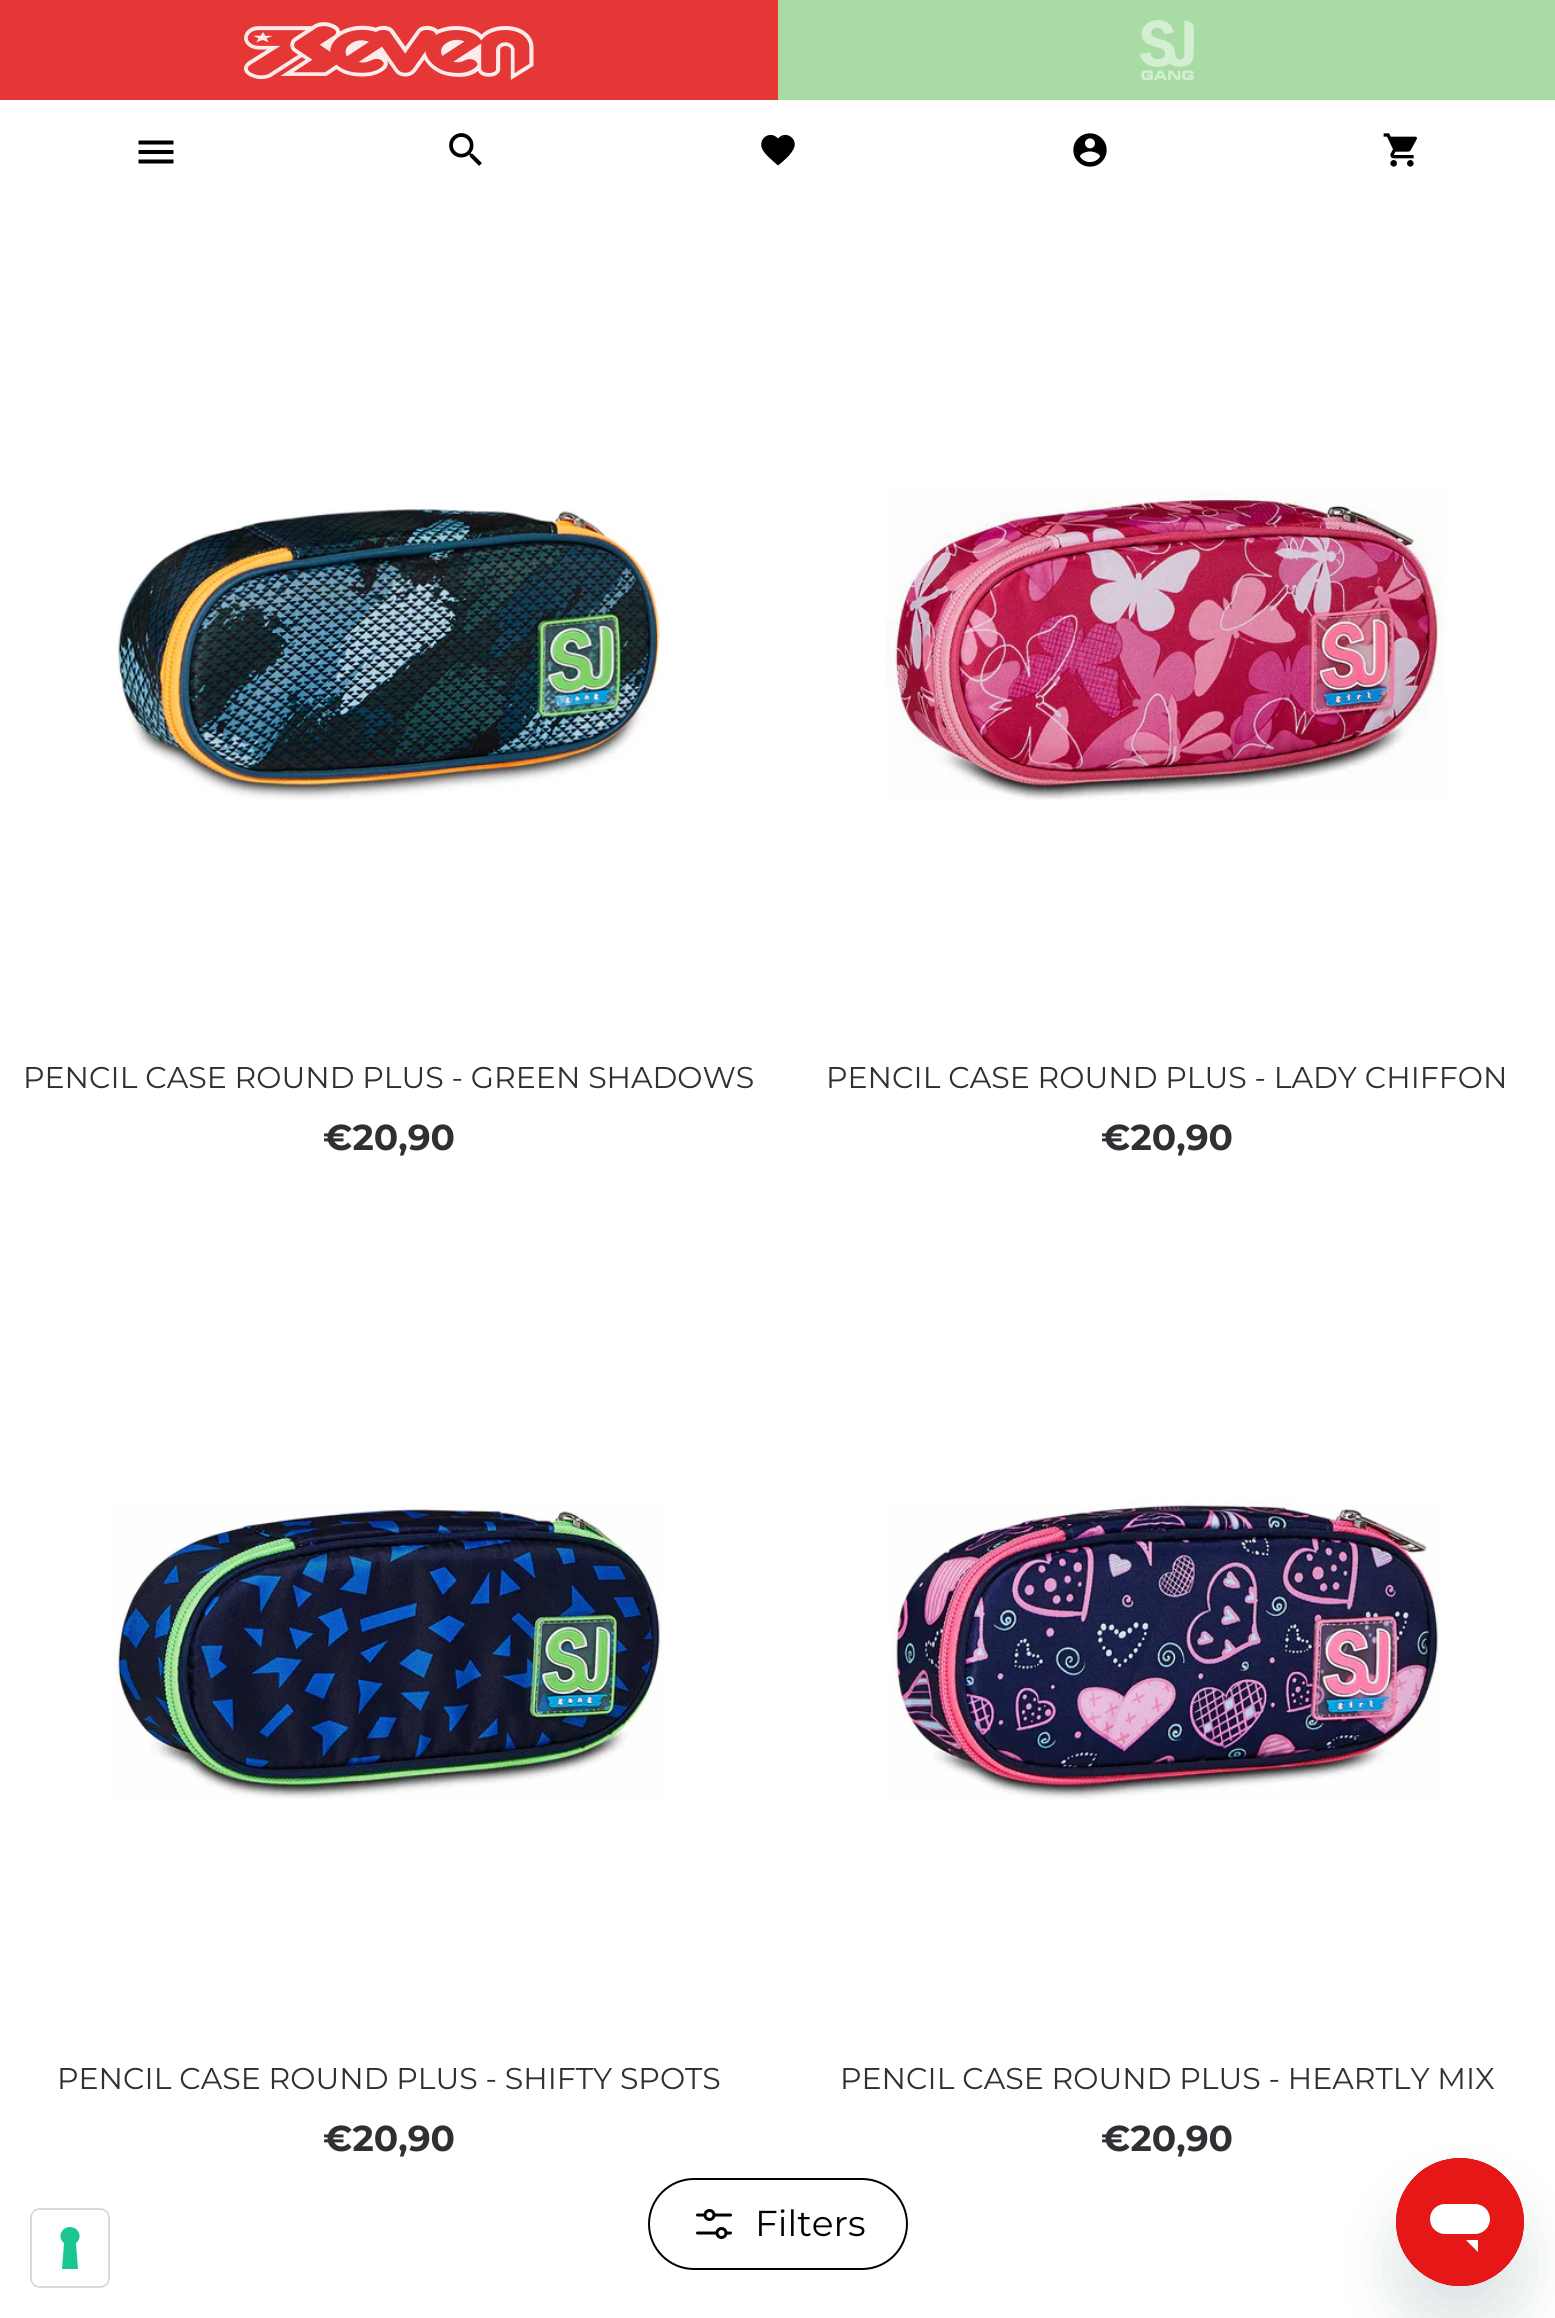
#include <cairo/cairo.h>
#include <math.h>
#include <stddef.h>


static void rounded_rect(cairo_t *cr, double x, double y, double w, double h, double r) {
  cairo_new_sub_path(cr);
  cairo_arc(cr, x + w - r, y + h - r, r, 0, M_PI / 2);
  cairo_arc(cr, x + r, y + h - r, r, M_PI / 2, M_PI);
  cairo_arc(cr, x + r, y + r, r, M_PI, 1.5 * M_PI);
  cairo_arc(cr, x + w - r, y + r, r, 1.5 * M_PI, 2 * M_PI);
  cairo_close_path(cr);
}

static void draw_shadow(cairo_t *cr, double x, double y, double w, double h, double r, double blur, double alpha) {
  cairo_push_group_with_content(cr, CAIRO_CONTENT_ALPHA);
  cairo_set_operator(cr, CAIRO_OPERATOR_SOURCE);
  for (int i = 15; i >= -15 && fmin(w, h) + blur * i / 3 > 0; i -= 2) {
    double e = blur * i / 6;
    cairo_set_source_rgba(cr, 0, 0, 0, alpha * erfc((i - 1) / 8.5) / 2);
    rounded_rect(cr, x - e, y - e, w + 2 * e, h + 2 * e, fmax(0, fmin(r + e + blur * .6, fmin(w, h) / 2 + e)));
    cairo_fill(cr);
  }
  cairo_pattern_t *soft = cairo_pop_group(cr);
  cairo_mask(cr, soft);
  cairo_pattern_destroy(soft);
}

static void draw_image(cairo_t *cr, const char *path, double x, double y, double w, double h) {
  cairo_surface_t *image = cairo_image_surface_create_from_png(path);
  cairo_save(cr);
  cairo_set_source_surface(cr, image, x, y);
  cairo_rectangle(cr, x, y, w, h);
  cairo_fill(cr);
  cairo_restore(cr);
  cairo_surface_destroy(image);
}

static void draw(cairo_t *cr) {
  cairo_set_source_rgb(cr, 1, 1, 1);
  cairo_paint(cr);
  cairo_set_source_rgb(cr, 229 / 255.0, 55 / 255.0, 54 / 255.0);
  cairo_rectangle(cr, 0, 0, 778, 100);
  cairo_fill(cr);
  draw_image(cr, "images/1.png", 244, 22, 290, 58);
  cairo_set_source_rgb(cr, 168 / 255.0, 220 / 255.0, 164 / 255.0);
  cairo_rectangle(cr, 778, 0, 777, 100);
  cairo_fill(cr);
  draw_image(cr, "images/2.png", 1140, 20, 54, 60);
  cairo_set_source_rgb(cr, 0, 0, 0);
  cairo_new_path(cr);
  cairo_move_to(cr, 138.5, 140.5);
  cairo_line_to(cr, 173.5, 140.5);
  cairo_line_to(cr, 173.5, 144.5);
  cairo_line_to(cr, 138.5, 144.5);
  cairo_close_path(cr);
  cairo_move_to(cr, 138.5, 154);
  cairo_line_to(cr, 138.5, 150);
  cairo_line_to(cr, 173.5, 150);
  cairo_line_to(cr, 173.5, 154);
  cairo_close_path(cr);
  cairo_move_to(cr, 138.5, 163.5);
  cairo_line_to(cr, 138.5, 159.5);
  cairo_line_to(cr, 173.5, 159.5);
  cairo_line_to(cr, 173.5, 163.5);
  cairo_close_path(cr);
  cairo_fill(cr);
  draw_image(cr, "images/3.png", 449, 133, 33, 33);
  cairo_new_path(cr);
  cairo_move_to(cr, 778, 165.5);
  cairo_curve_to(cr, 773.5, 161.5, 764.5, 154.5, 762, 148.5);
  cairo_curve_to(cr, 758, 138, 770.5, 130, 778, 138.5);
  cairo_curve_to(cr, 785, 130, 798, 138, 794, 148);
  cairo_curve_to(cr, 791, 155, 783.5, 161, 778, 165.5);
  cairo_close_path(cr);
  cairo_fill(cr);
  draw_image(cr, "images/4.png", 1073, 133, 34, 34);
  draw_image(cr, "images/5.png", 1383, 133, 34, 34);
  draw_image(cr, "images/6.png", 117, 506, 544, 294);
  draw_image(cr, "images/7.png", 886, 489, 560, 311);
  draw_image(cr, "images/8.png", 113, 1501, 549, 298);
  draw_image(cr, "images/9.png", 891, 1501, 549, 299);
  rounded_rect(cr, 649, 2179, 258, 90, 45);
  cairo_stroke(cr);
  draw_image(cr, "images/10.png", 696, 2209, 36, 30);
  rounded_rect(cr, 31, 2209, 78, 78, 9);
  cairo_set_source_rgb(cr, 217 / 255.0, 217 / 255.0, 217 / 255.0);
  cairo_stroke(cr);
  cairo_set_source_rgb(cr, 1, 1, 1);
  rounded_rect(cr, 32, 2210, 76, 76, 8);
  cairo_fill(cr);
  cairo_set_source_rgb(cr, 28 / 255.0, 198 / 255.0, 145 / 255.0);
  cairo_set_fill_rule(cr, CAIRO_FILL_RULE_EVEN_ODD);
  cairo_new_path(cr);
  cairo_move_to(cr, 70, 2227);
  cairo_curve_to(cr, 79, 2227, 83, 2238, 76, 2243);
  cairo_line_to(cr, 78, 2269);
  cairo_line_to(cr, 62, 2269);
  cairo_line_to(cr, 64, 2243);
  cairo_curve_to(cr, 57, 2238, 61, 2227, 70, 2227);
  cairo_close_path(cr);
  cairo_fill(cr);
  cairo_set_source_rgb(cr, 23 / 255.0, 73 / 255.0, 77 / 255.0);
  draw_shadow(cr, 1396, 2198, 128, 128, 64, 30, 0.15);
  draw_image(cr, "images/11.png", 1396, 2158, 128, 128);
  cairo_select_font_face(cr, "Montserrat", CAIRO_FONT_SLANT_NORMAL, CAIRO_FONT_WEIGHT_NORMAL);
  cairo_set_font_size(cr, 30);
  cairo_set_source_rgb(cr, 47 / 255.0, 48 / 255.0, 52 / 255.0);
  cairo_move_to(cr, 23, 1088);
  cairo_show_text(cr, "PENCIL CASE ROUND PLUS - GREEN SHADOWS");
  cairo_select_font_face(cr, "Montserrat", CAIRO_FONT_SLANT_NORMAL, CAIRO_FONT_WEIGHT_BOLD);
  cairo_set_font_size(cr, 36);
  cairo_move_to(cr, 323, 1150);
  cairo_show_text(cr, "€20,90");
  cairo_select_font_face(cr, "Montserrat", CAIRO_FONT_SLANT_NORMAL, CAIRO_FONT_WEIGHT_NORMAL);
  cairo_set_font_size(cr, 30);
  cairo_move_to(cr, 826, 1088);
  cairo_show_text(cr, "PENCIL CASE ROUND PLUS - LADY CHIFFON");
  cairo_select_font_face(cr, "Montserrat", CAIRO_FONT_SLANT_NORMAL, CAIRO_FONT_WEIGHT_BOLD);
  cairo_set_font_size(cr, 36);
  cairo_move_to(cr, 1101, 1150);
  cairo_show_text(cr, "€20,90");
  cairo_select_font_face(cr, "Montserrat", CAIRO_FONT_SLANT_NORMAL, CAIRO_FONT_WEIGHT_NORMAL);
  cairo_set_font_size(cr, 30);
  cairo_move_to(cr, 57, 2089);
  cairo_show_text(cr, "PENCIL CASE ROUND PLUS - SHIFTY SPOTS");
  cairo_select_font_face(cr, "Montserrat", CAIRO_FONT_SLANT_NORMAL, CAIRO_FONT_WEIGHT_BOLD);
  cairo_set_font_size(cr, 36);
  cairo_move_to(cr, 323, 2151);
  cairo_show_text(cr, "€20,90");
  cairo_select_font_face(cr, "Montserrat", CAIRO_FONT_SLANT_NORMAL, CAIRO_FONT_WEIGHT_NORMAL);
  cairo_set_font_size(cr, 30);
  cairo_move_to(cr, 840, 2089);
  cairo_show_text(cr, "PENCIL CASE ROUND PLUS - HEARTLY MIX");
  cairo_select_font_face(cr, "Montserrat", CAIRO_FONT_SLANT_NORMAL, CAIRO_FONT_WEIGHT_BOLD);
  cairo_set_font_size(cr, 36);
  cairo_move_to(cr, 1101, 2151);
  cairo_show_text(cr, "€20,90");
  cairo_select_font_face(cr, "Montserrat", CAIRO_FONT_SLANT_NORMAL, CAIRO_FONT_WEIGHT_NORMAL);
  cairo_set_source_rgb(cr, 0, 0, 0);
  cairo_move_to(cr, 755, 2236);
  cairo_show_text(cr, "Filters");
}

int main(void) {
  cairo_surface_t *surface = cairo_image_surface_create(CAIRO_FORMAT_RGB24, 1555, 2318);
  cairo_t *cr = cairo_create(surface);
  cairo_font_options_t *options = cairo_font_options_create();
  cairo_font_options_set_hint_metrics(options, CAIRO_HINT_METRICS_OFF);
  cairo_font_options_set_hint_style(options, CAIRO_HINT_STYLE_NONE);
  cairo_set_font_options(cr, options);
  cairo_set_miter_limit(cr, 4);
  draw(cr);
  cairo_surface_write_to_png(surface, "out.png");
  cairo_font_options_destroy(options);
  cairo_destroy(cr);
  cairo_surface_destroy(surface);
  return 0;
}
